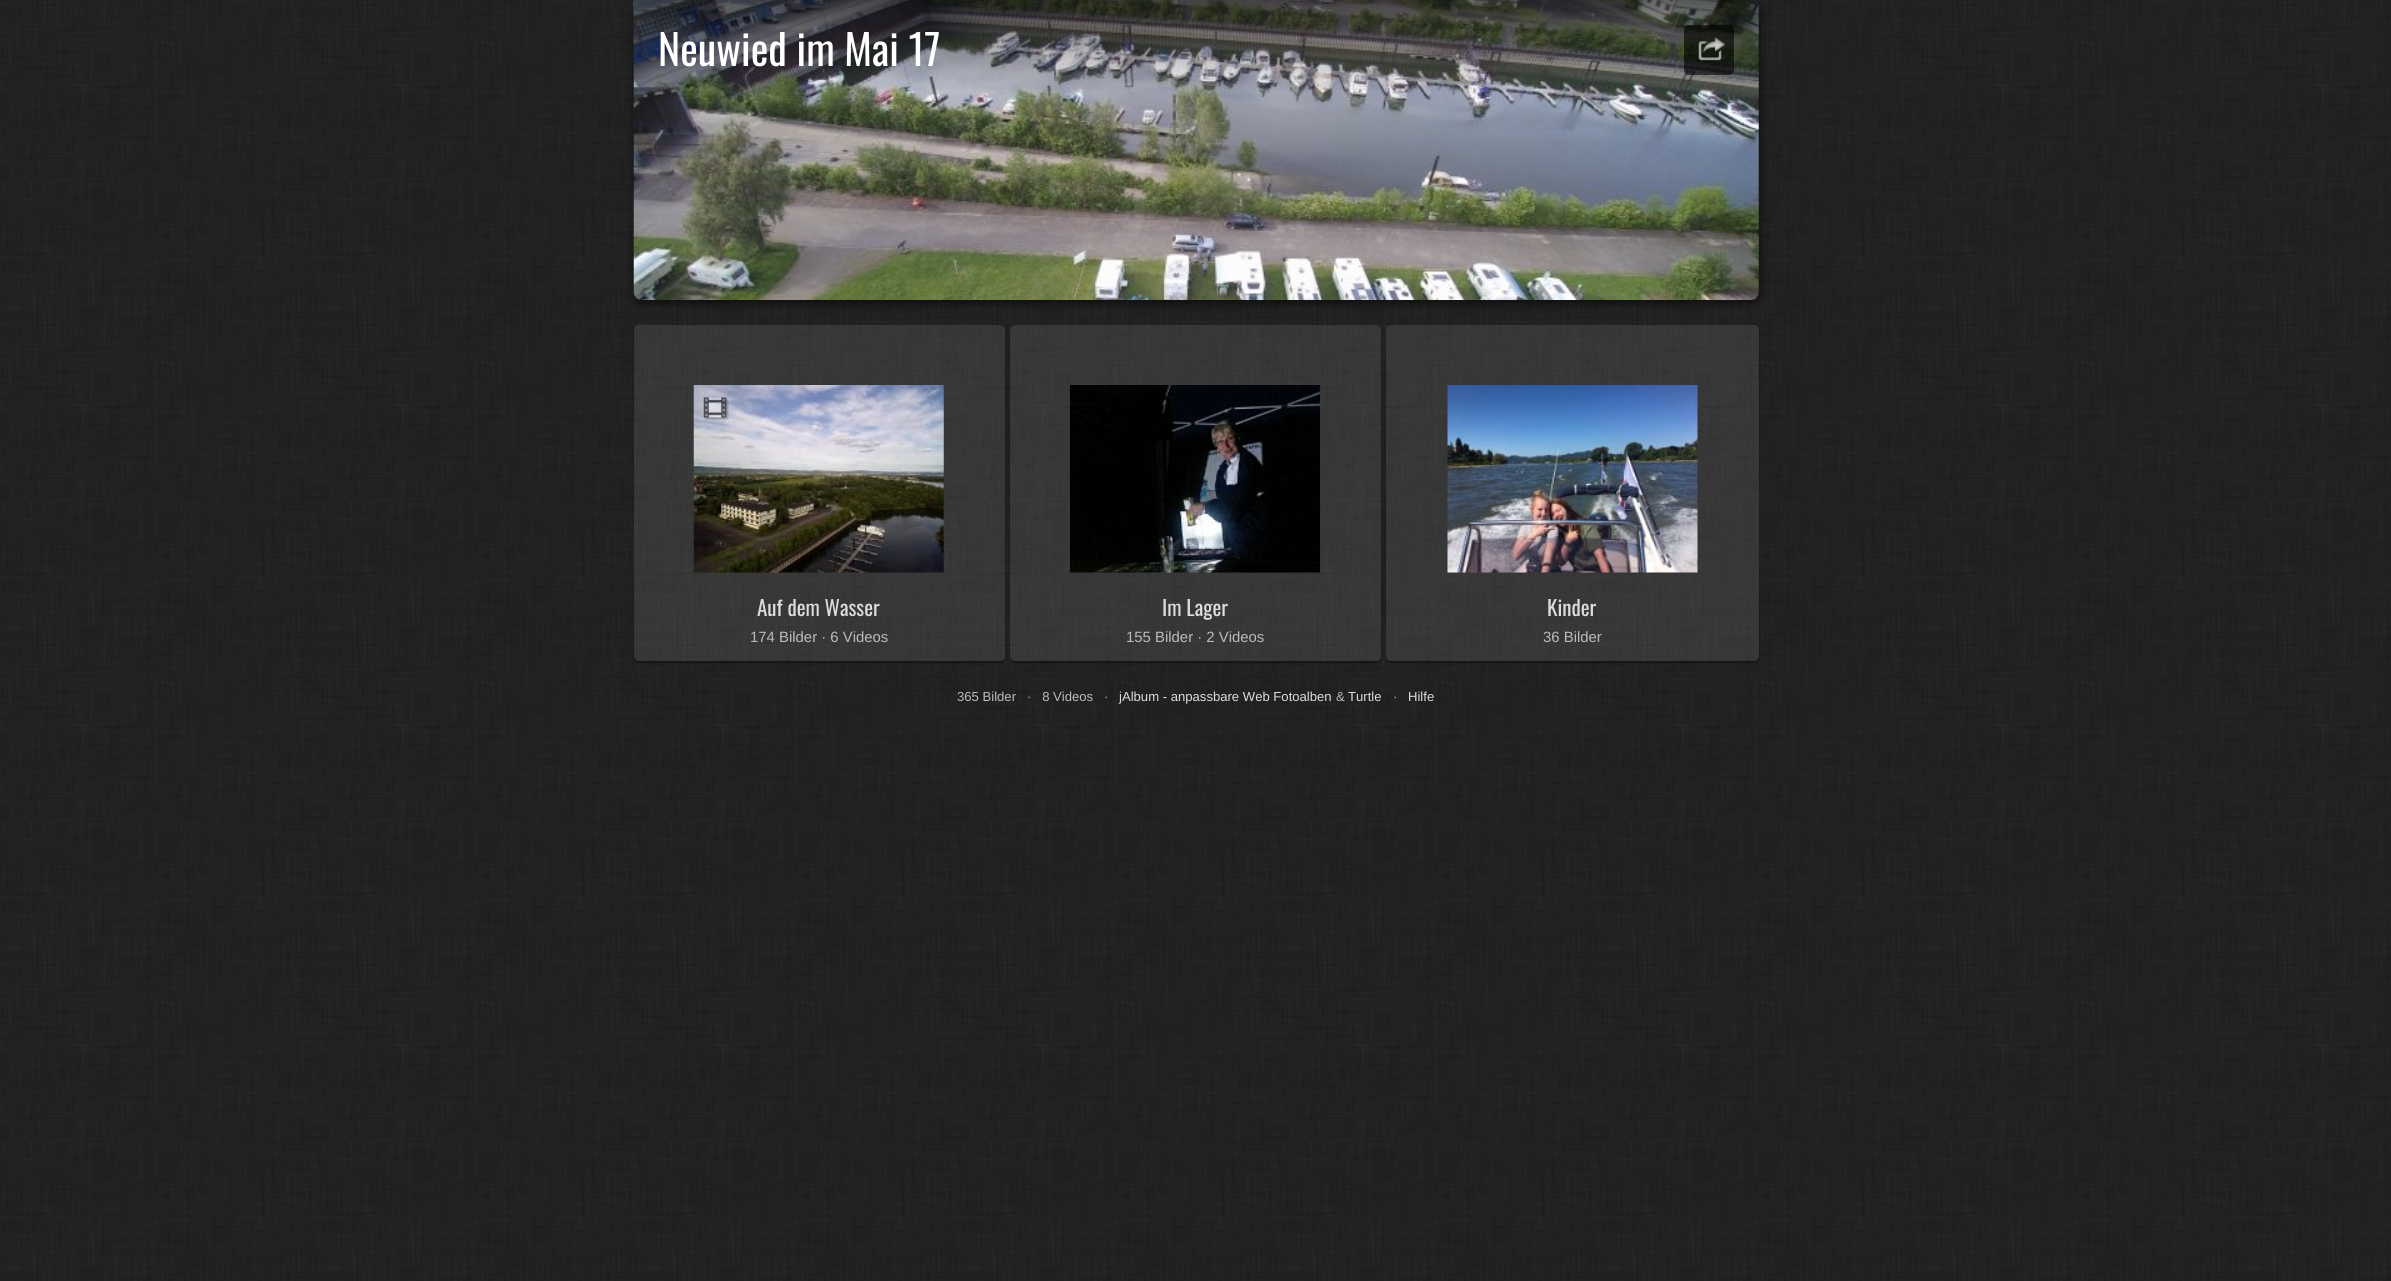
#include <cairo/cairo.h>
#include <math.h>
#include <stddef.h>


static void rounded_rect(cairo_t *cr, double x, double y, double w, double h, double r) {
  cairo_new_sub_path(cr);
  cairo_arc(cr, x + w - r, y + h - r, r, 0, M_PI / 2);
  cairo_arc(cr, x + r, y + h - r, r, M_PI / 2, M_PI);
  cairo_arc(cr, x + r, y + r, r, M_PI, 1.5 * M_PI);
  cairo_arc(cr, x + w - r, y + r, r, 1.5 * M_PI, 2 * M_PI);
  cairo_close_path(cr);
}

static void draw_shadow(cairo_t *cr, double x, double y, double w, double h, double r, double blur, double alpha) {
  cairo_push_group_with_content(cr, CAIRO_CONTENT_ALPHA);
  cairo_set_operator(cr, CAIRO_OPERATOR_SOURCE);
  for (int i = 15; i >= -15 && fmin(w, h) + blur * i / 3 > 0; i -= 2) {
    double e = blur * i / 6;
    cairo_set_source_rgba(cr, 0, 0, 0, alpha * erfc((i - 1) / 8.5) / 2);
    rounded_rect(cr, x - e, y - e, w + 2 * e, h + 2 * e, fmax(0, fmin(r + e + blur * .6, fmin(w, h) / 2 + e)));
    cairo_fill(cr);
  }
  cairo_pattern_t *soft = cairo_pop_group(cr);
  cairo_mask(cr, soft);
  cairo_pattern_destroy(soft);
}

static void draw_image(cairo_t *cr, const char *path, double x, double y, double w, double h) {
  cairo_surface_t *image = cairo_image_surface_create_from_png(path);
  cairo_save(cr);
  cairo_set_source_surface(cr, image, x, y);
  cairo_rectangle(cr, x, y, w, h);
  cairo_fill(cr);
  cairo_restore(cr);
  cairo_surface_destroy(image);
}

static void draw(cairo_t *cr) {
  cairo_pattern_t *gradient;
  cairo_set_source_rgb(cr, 34 / 255.0, 34 / 255.0, 34 / 255.0);
  cairo_paint(cr);
  draw_image(cr, "images/1.png", 0, 0, 2391, 1281);
  cairo_set_source_rgb(cr, 0, 0, 0);
  draw_shadow(cr, 635, 4, 1125, 300, 8, 5, 0.6);
  cairo_set_source_rgba(cr, 0, 0, 0, 0.2);
  cairo_new_path(cr);
  cairo_move_to(cr, 634, 0);
  cairo_line_to(cr, 1759, 0);
  cairo_line_to(cr, 1759, 292);
  cairo_curve_to(cr, 1759, 296.5, 1755.5, 300, 1751, 300);
  cairo_line_to(cr, 642, 300);
  cairo_curve_to(cr, 637.5, 300, 634, 296.5, 634, 292);
  cairo_close_path(cr);
  cairo_fill(cr);
  draw_image(cr, "images/2.png", 633, 0, 1126, 300);
  gradient = cairo_pattern_create_linear(1196, 0, 1196, 93);
  cairo_pattern_add_color_stop_rgba(gradient, 0, 0, 0, 0, 0.6);
  cairo_pattern_add_color_stop_rgba(gradient, 1, 0, 0, 0, 0);
  cairo_set_source(cr, gradient);
  cairo_pattern_destroy(gradient);
  cairo_rectangle(cr, 634, 0, 1125, 90);
  cairo_fill(cr);
  cairo_set_source_rgba(cr, 0, 0, 0, 0.6);
  rounded_rect(cr, 1684, 25, 50, 50, 5);
  cairo_fill(cr);
  draw_image(cr, "images/3.png", 1698, 37, 28, 24);
  cairo_save(cr);
  cairo_set_fill_rule(cr, CAIRO_FILL_RULE_EVEN_ODD);
  cairo_new_path(cr);
  cairo_move_to(cr, 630, 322);
  cairo_line_to(cr, 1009, 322);
  cairo_line_to(cr, 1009, 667);
  cairo_line_to(cr, 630, 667);
  cairo_close_path(cr);
  cairo_move_to(cr, 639, 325);
  cairo_line_to(cr, 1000, 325);
  cairo_curve_to(cr, 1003, 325, 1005, 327, 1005, 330);
  cairo_line_to(cr, 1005, 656);
  cairo_curve_to(cr, 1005, 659, 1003, 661, 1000, 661);
  cairo_line_to(cr, 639, 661);
  cairo_curve_to(cr, 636, 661, 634, 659, 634, 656);
  cairo_line_to(cr, 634, 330);
  cairo_curve_to(cr, 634, 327, 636, 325, 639, 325);
  cairo_close_path(cr);
  cairo_clip(cr);
  cairo_set_source_rgb(cr, 0, 0, 0);
  draw_shadow(cr, 634, 326, 371, 337, 5, 1, 0.4);
  cairo_restore(cr);
  cairo_set_source_rgba(cr, 1, 1, 1, 0.1);
  rounded_rect(cr, 634, 325, 371, 336, 5);
  cairo_fill(cr);
  draw_image(cr, "images/4.png", 693, 385, 251, 188);
  cairo_save(cr);
  cairo_set_fill_rule(cr, CAIRO_FILL_RULE_EVEN_ODD);
  cairo_new_path(cr);
  cairo_move_to(cr, 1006, 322);
  cairo_line_to(cr, 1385, 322);
  cairo_line_to(cr, 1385, 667);
  cairo_line_to(cr, 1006, 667);
  cairo_close_path(cr);
  cairo_move_to(cr, 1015, 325);
  cairo_line_to(cr, 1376, 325);
  cairo_curve_to(cr, 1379, 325, 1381, 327, 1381, 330);
  cairo_line_to(cr, 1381, 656);
  cairo_curve_to(cr, 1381, 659, 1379, 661, 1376, 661);
  cairo_line_to(cr, 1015, 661);
  cairo_curve_to(cr, 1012, 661, 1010, 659, 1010, 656);
  cairo_line_to(cr, 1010, 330);
  cairo_curve_to(cr, 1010, 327, 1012, 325, 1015, 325);
  cairo_close_path(cr);
  cairo_clip(cr);
  cairo_set_source_rgb(cr, 0, 0, 0);
  draw_shadow(cr, 1010, 326, 371, 337, 5, 1, 0.4);
  cairo_restore(cr);
  rounded_rect(cr, 1010, 325, 371, 336, 5);
  cairo_fill(cr);
  draw_image(cr, "images/5.png", 1070, 385, 250, 188);
  cairo_save(cr);
  cairo_set_fill_rule(cr, CAIRO_FILL_RULE_EVEN_ODD);
  cairo_new_path(cr);
  cairo_move_to(cr, 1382, 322);
  cairo_line_to(cr, 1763, 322);
  cairo_line_to(cr, 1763, 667);
  cairo_line_to(cr, 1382, 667);
  cairo_close_path(cr);
  cairo_move_to(cr, 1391, 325);
  cairo_line_to(cr, 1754, 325);
  cairo_curve_to(cr, 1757, 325, 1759, 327, 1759, 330);
  cairo_line_to(cr, 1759, 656);
  cairo_curve_to(cr, 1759, 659, 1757, 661, 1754, 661);
  cairo_line_to(cr, 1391, 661);
  cairo_curve_to(cr, 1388, 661, 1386, 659, 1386, 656);
  cairo_line_to(cr, 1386, 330);
  cairo_curve_to(cr, 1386, 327, 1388, 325, 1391, 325);
  cairo_close_path(cr);
  cairo_clip(cr);
  cairo_set_source_rgb(cr, 0, 0, 0);
  draw_shadow(cr, 1386, 326, 373, 337, 5, 1, 0.4);
  cairo_restore(cr);
  rounded_rect(cr, 1386, 325, 373, 336, 5);
  cairo_fill(cr);
  draw_image(cr, "images/6.png", 1447, 385, 251, 188);
  cairo_select_font_face(cr, "Oswald", CAIRO_FONT_SLANT_NORMAL, CAIRO_FONT_WEIGHT_NORMAL);
  cairo_set_font_size(cr, 42);
  cairo_set_source_rgb(cr, 1, 1, 1);
  cairo_move_to(cr, 658, 66);
  cairo_show_text(cr, "Neuwied im Mai 17");
  cairo_set_font_size(cr, 21);
  cairo_set_source_rgb(cr, 221 / 255.0, 221 / 255.0, 221 / 255.0);
  cairo_move_to(cr, 757, 616);
  cairo_show_text(cr, "Auf dem Wasser");
  cairo_select_font_face(cr, "Liberation Sans", CAIRO_FONT_SLANT_NORMAL, CAIRO_FONT_WEIGHT_NORMAL);
  cairo_set_font_size(cr, 14.9);
  cairo_set_source_rgb(cr, 187 / 255.0, 187 / 255.0, 187 / 255.0);
  cairo_move_to(cr, 750, 642);
  cairo_show_text(cr, "174 Bilder · 6 Videos");
  cairo_select_font_face(cr, "Oswald", CAIRO_FONT_SLANT_NORMAL, CAIRO_FONT_WEIGHT_NORMAL);
  cairo_set_font_size(cr, 21);
  cairo_set_source_rgb(cr, 221 / 255.0, 221 / 255.0, 221 / 255.0);
  cairo_move_to(cr, 1162, 616);
  cairo_show_text(cr, "Im Lager");
  cairo_select_font_face(cr, "Liberation Sans", CAIRO_FONT_SLANT_NORMAL, CAIRO_FONT_WEIGHT_NORMAL);
  cairo_set_font_size(cr, 14.9);
  cairo_set_source_rgb(cr, 187 / 255.0, 187 / 255.0, 187 / 255.0);
  cairo_move_to(cr, 1126, 642);
  cairo_show_text(cr, "155 Bilder · 2 Videos");
  cairo_select_font_face(cr, "Oswald", CAIRO_FONT_SLANT_NORMAL, CAIRO_FONT_WEIGHT_NORMAL);
  cairo_set_font_size(cr, 21);
  cairo_set_source_rgb(cr, 221 / 255.0, 221 / 255.0, 221 / 255.0);
  cairo_move_to(cr, 1547, 616);
  cairo_show_text(cr, "Kinder");
  cairo_select_font_face(cr, "Liberation Sans", CAIRO_FONT_SLANT_NORMAL, CAIRO_FONT_WEIGHT_NORMAL);
  cairo_set_font_size(cr, 14.9);
  cairo_set_source_rgb(cr, 187 / 255.0, 187 / 255.0, 187 / 255.0);
  cairo_move_to(cr, 1543, 642);
  cairo_show_text(cr, "36 Bilder");
  cairo_set_font_size(cr, 13.1);
  cairo_move_to(cr, 957, 701);
  cairo_show_text(cr, "365 Bilder   ·   8 Videos   ·");
  cairo_set_source_rgb(cr, 221 / 255.0, 221 / 255.0, 221 / 255.0);
  cairo_move_to(cr, 1119, 701);
  cairo_show_text(cr, "jAlbum - anpassbare Web Fotoalben");
  cairo_set_source_rgb(cr, 187 / 255.0, 187 / 255.0, 187 / 255.0);
  cairo_move_to(cr, 1336, 701);
  cairo_show_text(cr, "&");
  cairo_set_source_rgb(cr, 221 / 255.0, 221 / 255.0, 221 / 255.0);
  cairo_move_to(cr, 1348, 701);
  cairo_show_text(cr, "Turtle");
  cairo_set_source_rgb(cr, 187 / 255.0, 187 / 255.0, 187 / 255.0);
  cairo_move_to(cr, 1393, 701);
  cairo_show_text(cr, "·");
  cairo_set_source_rgb(cr, 221 / 255.0, 221 / 255.0, 221 / 255.0);
  cairo_move_to(cr, 1408, 701);
  cairo_show_text(cr, "Hilfe");
}

int main(void) {
  cairo_surface_t *surface = cairo_image_surface_create(CAIRO_FORMAT_RGB24, 2391, 1281);
  cairo_t *cr = cairo_create(surface);
  cairo_font_options_t *options = cairo_font_options_create();
  cairo_font_options_set_hint_metrics(options, CAIRO_HINT_METRICS_OFF);
  cairo_font_options_set_hint_style(options, CAIRO_HINT_STYLE_NONE);
  cairo_set_font_options(cr, options);
  cairo_set_miter_limit(cr, 4);
  draw(cr);
  cairo_surface_write_to_png(surface, "out.png");
  cairo_font_options_destroy(options);
  cairo_destroy(cr);
  cairo_surface_destroy(surface);
  return 0;
}
